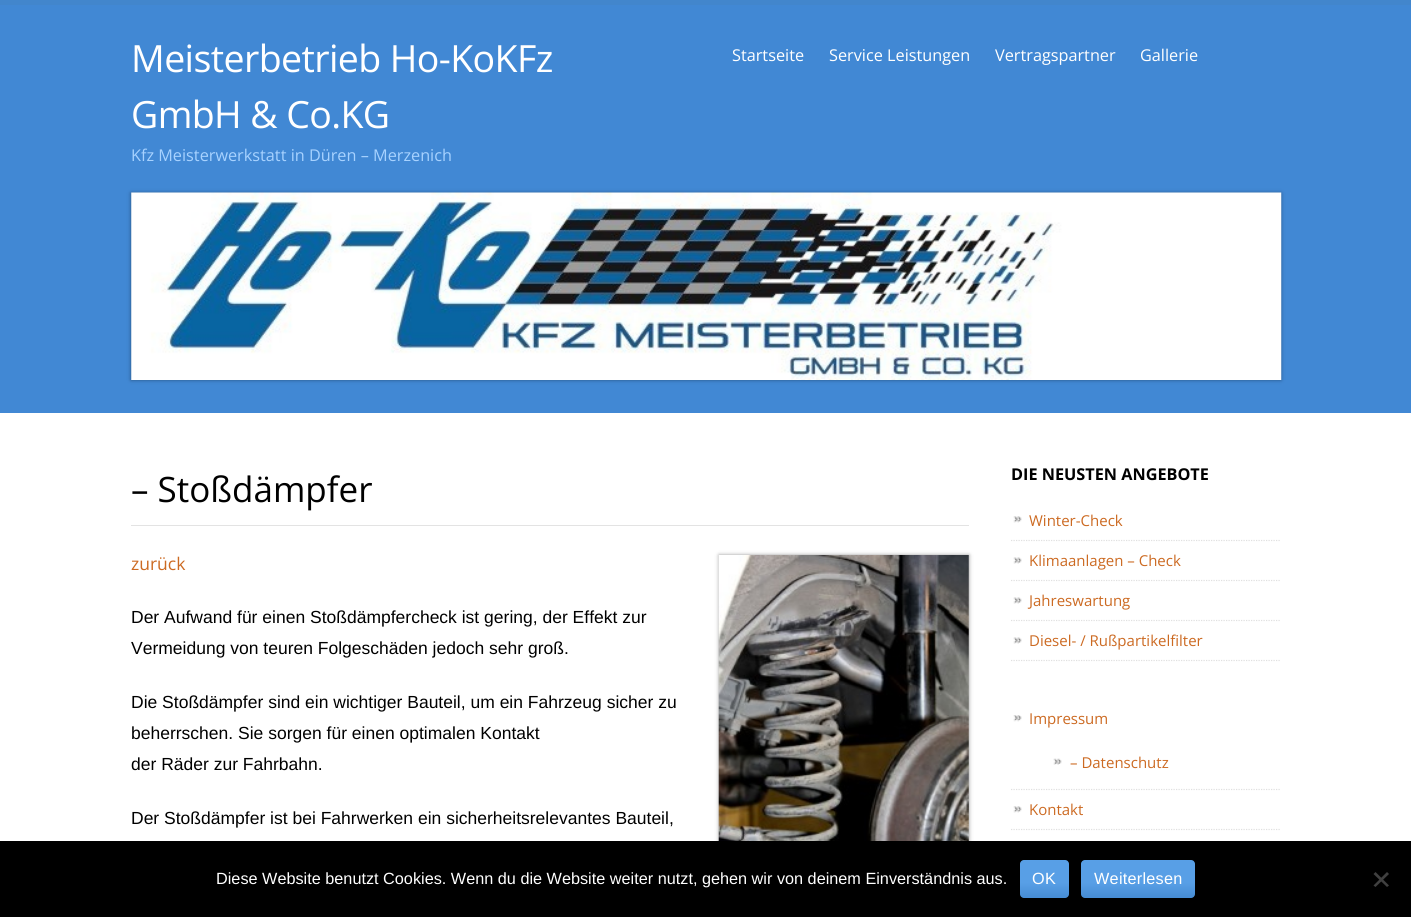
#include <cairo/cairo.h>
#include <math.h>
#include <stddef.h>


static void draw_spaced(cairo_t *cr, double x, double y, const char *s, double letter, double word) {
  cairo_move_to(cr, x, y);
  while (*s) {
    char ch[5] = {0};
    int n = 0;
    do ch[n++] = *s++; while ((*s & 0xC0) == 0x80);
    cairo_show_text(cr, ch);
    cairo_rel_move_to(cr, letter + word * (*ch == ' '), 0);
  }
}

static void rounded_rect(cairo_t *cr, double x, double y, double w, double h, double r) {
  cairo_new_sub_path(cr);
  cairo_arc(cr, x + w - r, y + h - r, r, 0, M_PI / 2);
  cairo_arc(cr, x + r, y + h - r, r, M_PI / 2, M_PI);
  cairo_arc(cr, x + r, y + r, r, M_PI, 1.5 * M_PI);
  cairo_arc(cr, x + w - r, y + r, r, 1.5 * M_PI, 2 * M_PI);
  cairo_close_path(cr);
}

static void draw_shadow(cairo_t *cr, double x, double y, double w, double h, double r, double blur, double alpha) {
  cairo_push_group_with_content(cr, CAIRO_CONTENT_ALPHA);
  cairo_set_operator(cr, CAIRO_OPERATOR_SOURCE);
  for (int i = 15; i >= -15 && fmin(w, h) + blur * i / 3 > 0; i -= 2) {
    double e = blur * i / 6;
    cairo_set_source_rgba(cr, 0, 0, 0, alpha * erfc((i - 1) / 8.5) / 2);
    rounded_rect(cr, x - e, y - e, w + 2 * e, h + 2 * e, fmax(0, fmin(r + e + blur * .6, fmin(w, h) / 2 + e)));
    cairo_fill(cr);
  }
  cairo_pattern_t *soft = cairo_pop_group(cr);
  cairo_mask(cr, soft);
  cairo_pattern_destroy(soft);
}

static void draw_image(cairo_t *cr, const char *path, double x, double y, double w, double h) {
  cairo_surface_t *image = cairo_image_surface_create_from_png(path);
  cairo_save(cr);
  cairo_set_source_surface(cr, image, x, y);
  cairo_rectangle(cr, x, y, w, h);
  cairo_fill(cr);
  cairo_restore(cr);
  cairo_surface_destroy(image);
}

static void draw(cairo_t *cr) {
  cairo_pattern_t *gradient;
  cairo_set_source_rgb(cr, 65 / 255.0, 136 / 255.0, 212 / 255.0);
  cairo_paint(cr);
  cairo_set_source_rgb(cr, 66 / 255.0, 134 / 255.0, 204 / 255.0);
  cairo_rectangle(cr, 0, 0, 1411, 5);
  cairo_fill(cr);
  cairo_set_source_rgb(cr, 0, 0, 0);
  draw_shadow(cr, 131, 193, 1150, 187, 0, 2, 0.4);
  draw_image(cr, "images/1.png", 131, 192, 1151, 188);
  cairo_set_source_rgb(cr, 1, 1, 1);
  cairo_rectangle(cr, 0, 413, 1411, 428);
  cairo_fill(cr);
  cairo_set_source_rgb(cr, 227 / 255.0, 227 / 255.0, 227 / 255.0);
  cairo_rectangle(cr, 131, 525, 838, 1);
  cairo_fill(cr);
  cairo_set_source_rgb(cr, 0, 0, 0);
  draw_shadow(cr, 719, 555, 250, 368, 0, 2, 0.4);
  draw_image(cr, "images/2.png", 718, 555, 251, 286);
  draw_image(cr, "images/3.png", 1013, 516, 9, 7);
  cairo_new_path(cr);
  cairo_move_to(cr, 1011, 540.5);
  cairo_line_to(cr, 1281, 540.5);
  cairo_set_source_rgb(cr, 224 / 255.0, 224 / 255.0, 224 / 255.0);
  cairo_set_line_width(cr, 1.2);
  cairo_set_dash(cr, (double[]){1.25, 1.25}, 2, 0);
  cairo_stroke(cr);
  draw_image(cr, "images/4.png", 1013, 557, 9, 7);
  cairo_new_path(cr);
  cairo_move_to(cr, 1011, 580.5);
  cairo_line_to(cr, 1281, 580.5);
  cairo_stroke(cr);
  draw_image(cr, "images/4.png", 1013, 597, 9, 7);
  cairo_new_path(cr);
  cairo_move_to(cr, 1011, 620.5);
  cairo_line_to(cr, 1281, 620.5);
  cairo_stroke(cr);
  draw_image(cr, "images/4.png", 1013, 637, 9, 7);
  cairo_new_path(cr);
  cairo_move_to(cr, 1011, 660.5);
  cairo_line_to(cr, 1281, 660.5);
  cairo_stroke(cr);
  draw_image(cr, "images/5.png", 1013, 715, 9, 7);
  cairo_new_path(cr);
  cairo_move_to(cr, 1011, 789.5);
  cairo_line_to(cr, 1281, 789.5);
  cairo_stroke(cr);
  draw_image(cr, "images/6.png", 1053, 758, 9, 7);
  draw_image(cr, "images/3.png", 1013, 806, 9, 7);
  cairo_new_path(cr);
  cairo_move_to(cr, 1011, 829.5);
  cairo_line_to(cr, 1281, 829.5);
  cairo_stroke(cr);
  cairo_set_source_rgb(cr, 0, 0, 0);
  cairo_rectangle(cr, 0, 841, 1411, 76);
  cairo_fill(cr);
  gradient = cairo_pattern_create_linear(1044, 860, 1044, 898);
  cairo_pattern_add_color_stop_rgba(gradient, 0.6, 88 / 255.0, 159 / 255.0, 230 / 255.0, 1);
  cairo_pattern_add_color_stop_rgba(gradient, 1, 70 / 255.0, 140 / 255.0, 212 / 255.0, 1);
  cairo_set_source(cr, gradient);
  cairo_pattern_destroy(gradient);
  rounded_rect(cr, 1020, 860, 49, 38, 4);
  cairo_fill(cr);
  gradient = cairo_pattern_create_linear(1138, 860, 1138, 898);
  cairo_pattern_add_color_stop_rgba(gradient, 0.6, 88 / 255.0, 159 / 255.0, 230 / 255.0, 1);
  cairo_pattern_add_color_stop_rgba(gradient, 1, 70 / 255.0, 140 / 255.0, 212 / 255.0, 1);
  cairo_set_source(cr, gradient);
  cairo_pattern_destroy(gradient);
  rounded_rect(cr, 1081, 860, 114, 38, 4);
  cairo_fill(cr);
  cairo_set_source_rgb(cr, 64 / 255.0, 64 / 255.0, 64 / 255.0);
  cairo_new_path(cr);
  cairo_move_to(cr, 1387, 872);
  cairo_line_to(cr, 1389, 874);
  cairo_line_to(cr, 1375.5, 887);
  cairo_line_to(cr, 1373.5, 885.5);
  cairo_close_path(cr);
  cairo_fill(cr);
  cairo_new_path(cr);
  cairo_move_to(cr, 1373.5, 874);
  cairo_line_to(cr, 1375.5, 872);
  cairo_line_to(cr, 1389, 885.5);
  cairo_line_to(cr, 1387, 887);
  cairo_close_path(cr);
  cairo_fill(cr);
  cairo_select_font_face(cr, "Open Sans", CAIRO_FONT_SLANT_NORMAL, CAIRO_FONT_WEIGHT_NORMAL);
  cairo_set_font_size(cr, 37.5);
  cairo_set_source_rgb(cr, 1, 1, 1);
  draw_spaced(cr, 131, 72, "Meisterbetrieb Ho-KoKFz", -0.6, 0);
  draw_spaced(cr, 131, 128, "GmbH & Co.KG", -0.6, 0);
  cairo_set_font_size(cr, 16.25);
  cairo_set_source_rgb(cr, 167 / 255.0, 210 / 255.0, 1);
  cairo_move_to(cr, 131, 161);
  cairo_show_text(cr, "Kfz Meisterwerkstatt in Düren – Merzenich");
  cairo_set_source_rgb(cr, 1, 1, 1);
  cairo_move_to(cr, 732, 61);
  cairo_show_text(cr, "Startseite");
  cairo_move_to(cr, 829, 61);
  cairo_show_text(cr, "Service Leistungen");
  cairo_move_to(cr, 995, 61);
  cairo_show_text(cr, "Vertragspartner");
  cairo_move_to(cr, 1140, 61);
  cairo_show_text(cr, "Gallerie");
  cairo_set_font_size(cr, 35);
  cairo_set_source_rgb(cr, 0, 0, 0);
  cairo_move_to(cr, 131, 502);
  cairo_show_text(cr, "– Stoßdämpfer");
  cairo_set_font_size(cr, 17.5);
  cairo_set_source_rgb(cr, 204 / 255.0, 106 / 255.0, 34 / 255.0);
  cairo_move_to(cr, 131, 570);
  cairo_show_text(cr, "zurück");
  cairo_select_font_face(cr, "Liberation Sans", CAIRO_FONT_SLANT_NORMAL, CAIRO_FONT_WEIGHT_NORMAL);
  cairo_set_source_rgb(cr, 0, 0, 0);
  cairo_move_to(cr, 131, 623);
  cairo_show_text(cr, "Der Aufwand für einen Stoßdämpfercheck ist gering, der Effekt zur");
  cairo_move_to(cr, 131, 654);
  cairo_show_text(cr, "Vermeidung von teuren Folgeschäden jedoch sehr groß.");
  cairo_move_to(cr, 131, 708);
  cairo_show_text(cr, "Die Stoßdämpfer sind ein wichtiger Bauteil, um ein Fahrzeug sicher zu");
  cairo_move_to(cr, 131, 739);
  cairo_show_text(cr, "beherrschen. Sie sorgen für einen optimalen Kontakt");
  cairo_move_to(cr, 131, 770);
  cairo_show_text(cr, "der Räder zur Fahrbahn.");
  cairo_move_to(cr, 131, 824);
  cairo_show_text(cr, "Der Stoßdämpfer ist bei Fahrwerken ein sicherheitsrelevantes Bauteil,");
  cairo_select_font_face(cr, "Open Sans", CAIRO_FONT_SLANT_NORMAL, CAIRO_FONT_WEIGHT_BOLD);
  cairo_set_font_size(cr, 16.25);
  cairo_move_to(cr, 1011, 480);
  cairo_show_text(cr, "DIE NEUSTEN ANGEBOTE");
  cairo_select_font_face(cr, "Open Sans", CAIRO_FONT_SLANT_NORMAL, CAIRO_FONT_WEIGHT_NORMAL);
  cairo_set_font_size(cr, 15);
  cairo_set_source_rgb(cr, 204 / 255.0, 106 / 255.0, 34 / 255.0);
  cairo_move_to(cr, 1029, 526);
  cairo_show_text(cr, "Winter-Check");
  cairo_move_to(cr, 1029, 566);
  cairo_show_text(cr, "Klimaanlagen – Check");
  cairo_move_to(cr, 1029, 606);
  cairo_show_text(cr, "Jahreswartung");
  cairo_move_to(cr, 1029, 646);
  cairo_show_text(cr, "Diesel- / Rußpartikelfilter");
  cairo_move_to(cr, 1029, 724);
  cairo_show_text(cr, "Impressum");
  cairo_move_to(cr, 1070, 768);
  cairo_show_text(cr, "– Datenschutz");
  cairo_move_to(cr, 1029, 815);
  cairo_show_text(cr, "Kontakt");
  cairo_select_font_face(cr, "Liberation Sans", CAIRO_FONT_SLANT_NORMAL, CAIRO_FONT_WEIGHT_NORMAL);
  cairo_set_font_size(cr, 16.25);
  cairo_set_source_rgb(cr, 1, 1, 1);
  cairo_move_to(cr, 216, 884);
  cairo_show_text(cr, "Diese Website benutzt Cookies. Wenn du die Website weiter nutzt, gehen wir von deinem Einverständnis aus.");
  draw_spaced(cr, 1032, 884, "OK", 0.25, 0);
  draw_spaced(cr, 1094, 884, "Weiterlesen", 0.25, 0);
}

int main(void) {
  cairo_surface_t *surface = cairo_image_surface_create(CAIRO_FORMAT_RGB24, 1411, 917);
  cairo_t *cr = cairo_create(surface);
  cairo_font_options_t *options = cairo_font_options_create();
  cairo_font_options_set_hint_metrics(options, CAIRO_HINT_METRICS_OFF);
  cairo_font_options_set_hint_style(options, CAIRO_HINT_STYLE_NONE);
  cairo_set_font_options(cr, options);
  cairo_set_miter_limit(cr, 4);
  draw(cr);
  cairo_surface_write_to_png(surface, "out.png");
  cairo_font_options_destroy(options);
  cairo_destroy(cr);
  cairo_surface_destroy(surface);
  return 0;
}
